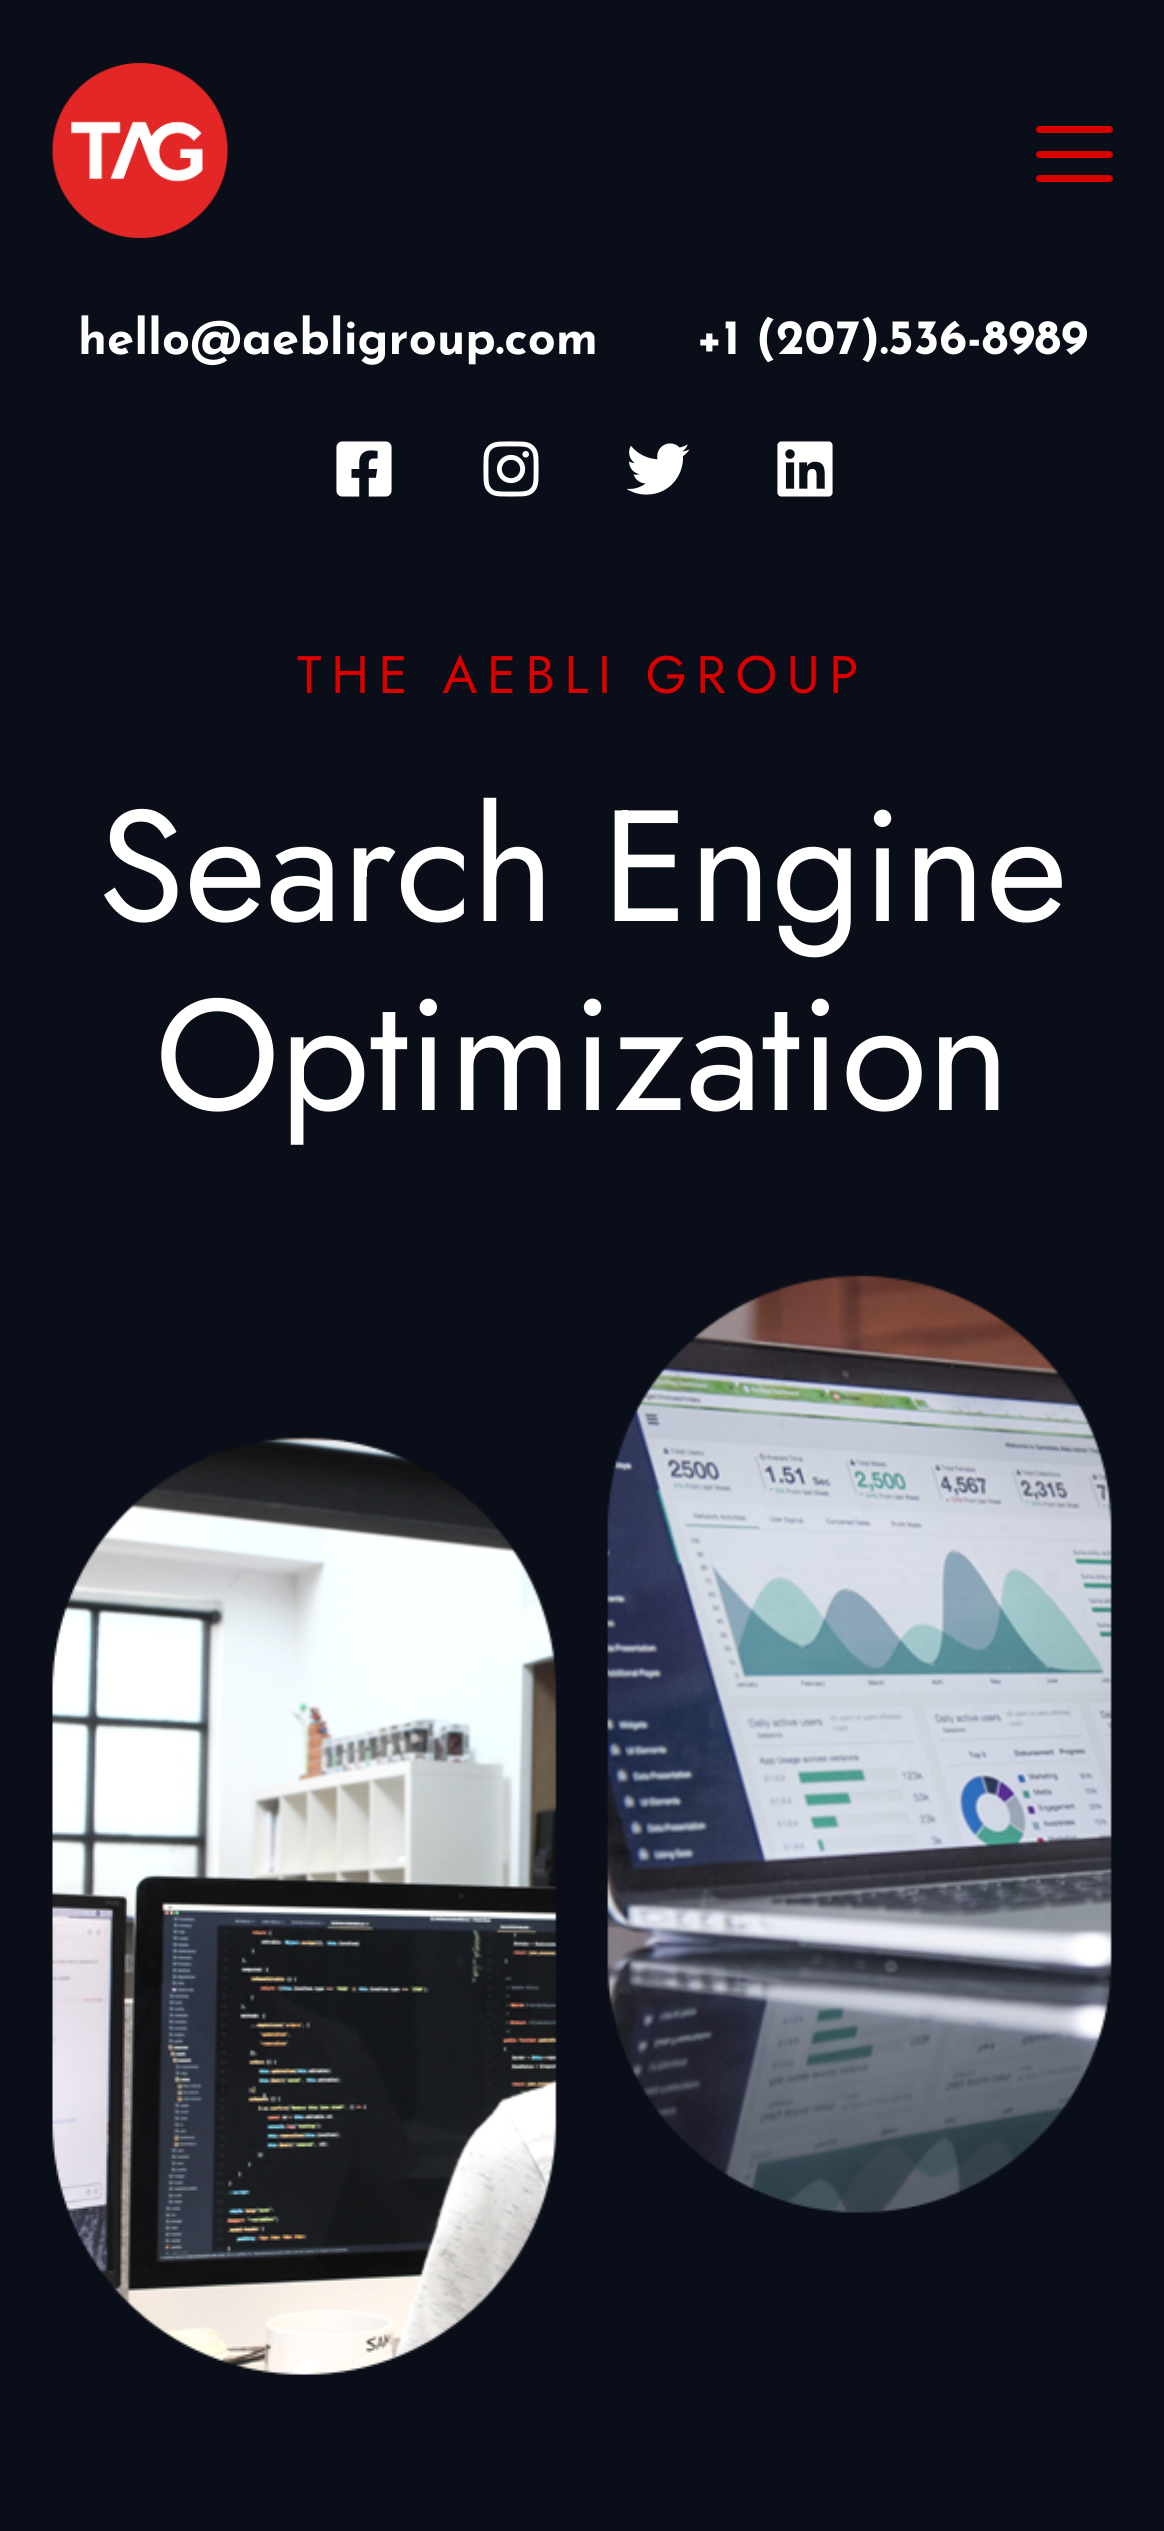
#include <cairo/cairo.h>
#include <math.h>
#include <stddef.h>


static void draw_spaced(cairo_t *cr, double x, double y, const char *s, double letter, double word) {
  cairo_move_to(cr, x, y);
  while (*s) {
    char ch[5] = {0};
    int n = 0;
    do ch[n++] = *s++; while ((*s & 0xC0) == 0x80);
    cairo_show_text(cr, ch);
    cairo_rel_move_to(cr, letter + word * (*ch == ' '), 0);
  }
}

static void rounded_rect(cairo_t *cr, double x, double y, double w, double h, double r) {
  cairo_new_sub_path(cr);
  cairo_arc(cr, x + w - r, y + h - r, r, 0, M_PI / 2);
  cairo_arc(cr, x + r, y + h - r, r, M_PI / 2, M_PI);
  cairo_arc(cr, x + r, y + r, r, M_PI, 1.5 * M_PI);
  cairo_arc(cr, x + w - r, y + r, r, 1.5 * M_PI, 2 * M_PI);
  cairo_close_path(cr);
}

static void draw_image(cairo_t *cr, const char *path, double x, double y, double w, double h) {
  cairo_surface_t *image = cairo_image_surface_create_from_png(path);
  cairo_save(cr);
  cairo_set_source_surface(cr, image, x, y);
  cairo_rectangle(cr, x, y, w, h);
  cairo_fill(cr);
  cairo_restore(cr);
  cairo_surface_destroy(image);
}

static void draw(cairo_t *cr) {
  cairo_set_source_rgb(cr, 10 / 255.0, 14 / 255.0, 25 / 255.0);
  cairo_paint(cr);
  draw_image(cr, "images/1.png", 52, 63, 176, 175);
  cairo_set_source_rgb(cr, 217 / 255.0, 0, 0);
  rounded_rect(cr, 1036, 151, 77, 7, 3.5);
  cairo_fill(cr);
  rounded_rect(cr, 1036, 126, 77, 7, 3.5);
  cairo_fill(cr);
  rounded_rect(cr, 1036, 175, 77, 7, 3.5);
  cairo_fill(cr);
  draw_image(cr, "images/2.png", 336, 441, 56, 56);
  draw_image(cr, "images/3.png", 483, 441, 56, 56);
  draw_image(cr, "images/4.png", 627, 443, 63, 52);
  draw_image(cr, "images/5.png", 777, 441, 56, 56);
  draw_image(cr, "images/6.png", 52, 1275, 1060, 1100);
  cairo_select_font_face(cr, "Josefin Sans", CAIRO_FONT_SLANT_NORMAL, CAIRO_FONT_WEIGHT_BOLD);
  cairo_set_font_size(cr, 49);
  cairo_set_source_rgb(cr, 1, 1, 1);
  cairo_move_to(cr, 78, 354);
  cairo_show_text(cr, "hello@aebligroup.com");
  cairo_move_to(cr, 696, 354);
  cairo_show_text(cr, "+1 (207).536-8989");
  cairo_select_font_face(cr, "Jost", CAIRO_FONT_SLANT_NORMAL, CAIRO_FONT_WEIGHT_NORMAL);
  cairo_set_font_size(cr, 52.75);
  cairo_set_source_rgb(cr, 217 / 255.0, 0, 0);
  draw_spaced(cr, 297, 693, "THE AEBLI GROUP", 9.6, 0);
  cairo_set_font_size(cr, 158);
  cairo_set_source_rgb(cr, 1, 1, 1);
  cairo_move_to(cr, 98, 921);
  cairo_show_text(cr, "Search Engine");
  cairo_move_to(cr, 155, 1110);
  cairo_show_text(cr, "Optimization");
}

int main(void) {
  cairo_surface_t *surface = cairo_image_surface_create(CAIRO_FORMAT_RGB24, 1164, 2531);
  cairo_t *cr = cairo_create(surface);
  cairo_font_options_t *options = cairo_font_options_create();
  cairo_font_options_set_hint_metrics(options, CAIRO_HINT_METRICS_OFF);
  cairo_font_options_set_hint_style(options, CAIRO_HINT_STYLE_NONE);
  cairo_set_font_options(cr, options);
  cairo_set_miter_limit(cr, 4);
  draw(cr);
  cairo_surface_write_to_png(surface, "out.png");
  cairo_font_options_destroy(options);
  cairo_destroy(cr);
  cairo_surface_destroy(surface);
  return 0;
}
